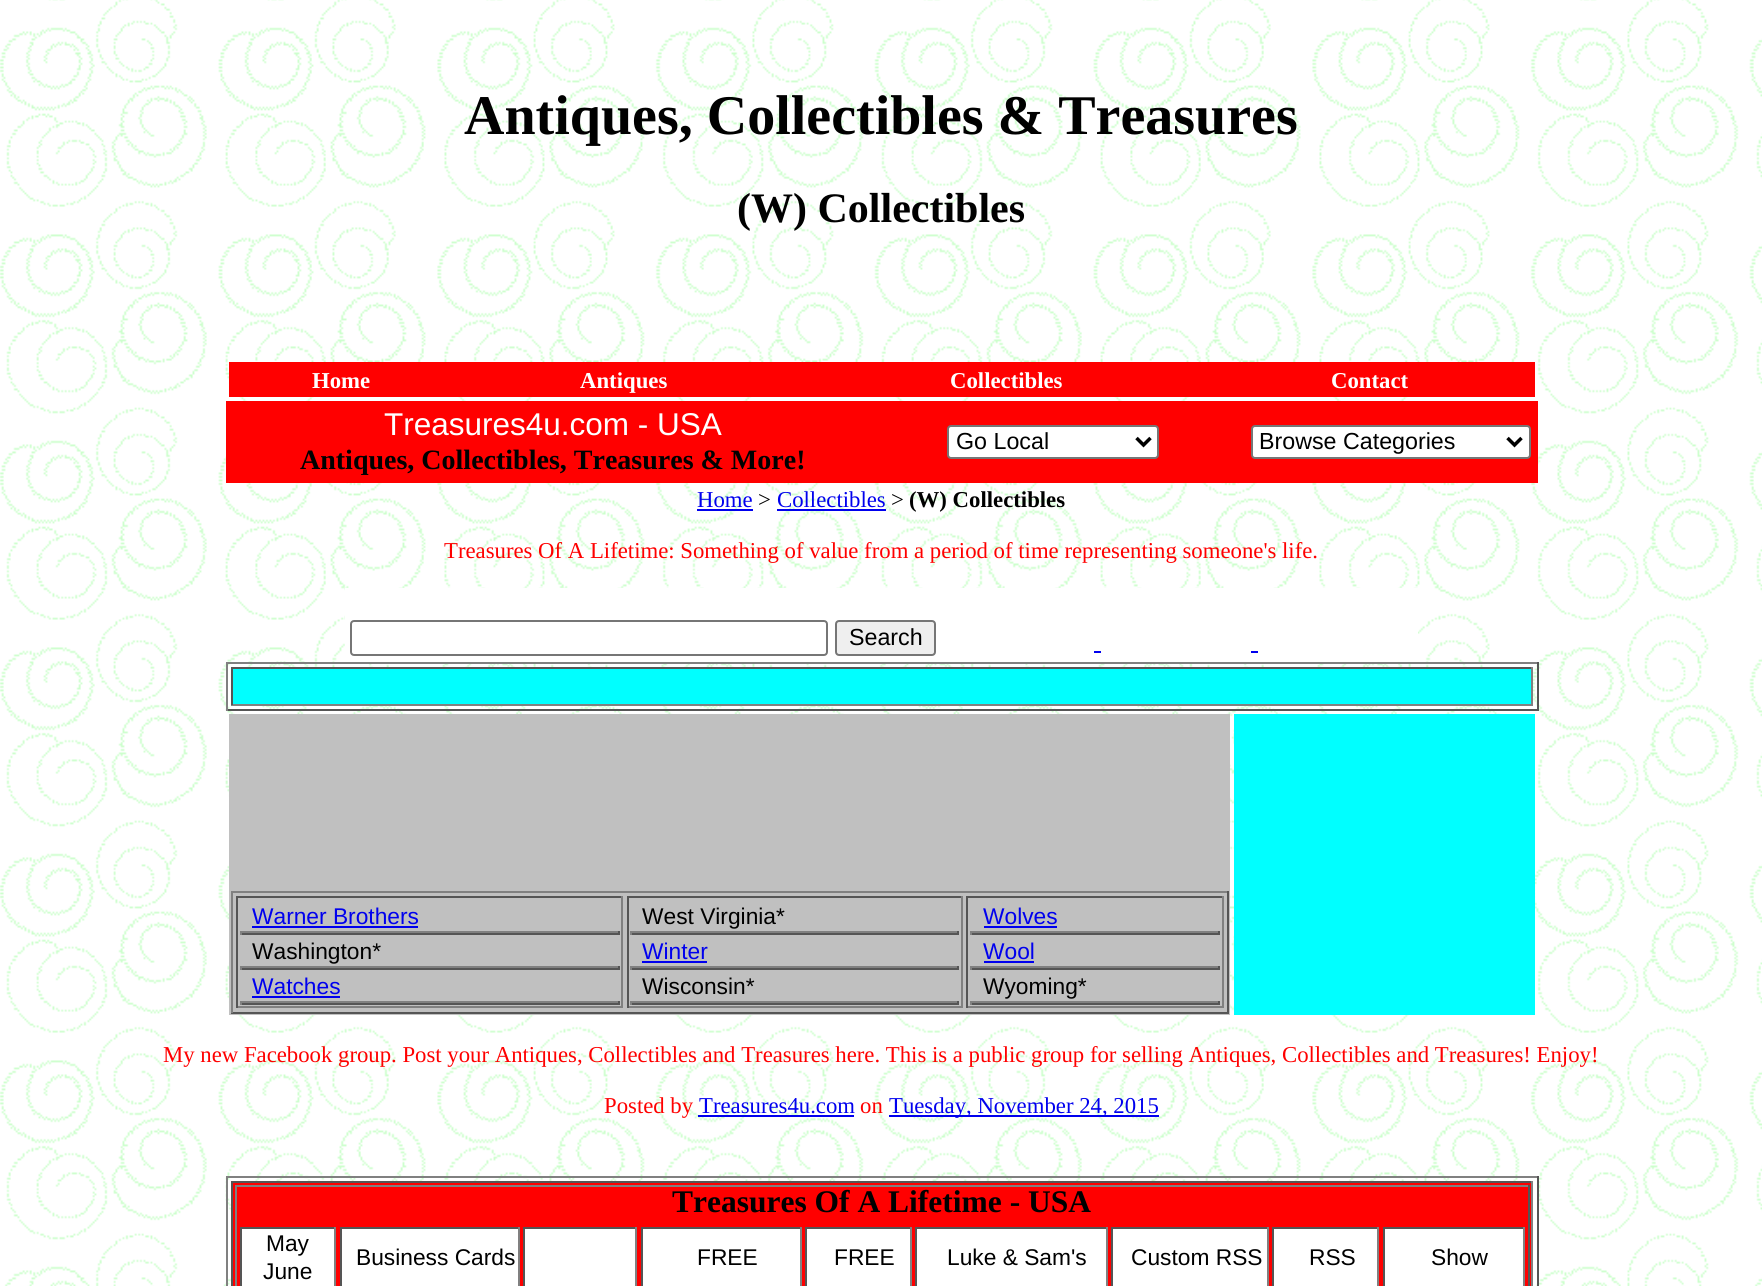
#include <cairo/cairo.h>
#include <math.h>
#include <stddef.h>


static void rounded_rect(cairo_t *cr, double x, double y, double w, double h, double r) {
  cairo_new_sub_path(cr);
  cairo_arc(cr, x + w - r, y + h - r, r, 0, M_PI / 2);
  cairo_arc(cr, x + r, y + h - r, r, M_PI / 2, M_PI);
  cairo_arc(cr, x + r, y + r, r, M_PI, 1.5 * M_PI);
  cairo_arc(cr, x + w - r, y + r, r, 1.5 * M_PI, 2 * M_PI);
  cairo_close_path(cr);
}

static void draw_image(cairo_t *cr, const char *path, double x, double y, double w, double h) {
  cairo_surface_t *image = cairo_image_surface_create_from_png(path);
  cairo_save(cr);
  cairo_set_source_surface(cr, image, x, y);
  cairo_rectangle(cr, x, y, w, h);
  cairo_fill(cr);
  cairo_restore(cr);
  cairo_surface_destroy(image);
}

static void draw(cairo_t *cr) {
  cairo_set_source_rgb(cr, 1, 1, 1);
  cairo_paint(cr);
  draw_image(cr, "images/1.png", 0, 0, 1762, 1286);
  cairo_set_source_rgb(cr, 1, 0, 0);
  cairo_rectangle(cr, 229, 362, 1306, 35);
  cairo_fill(cr);
  cairo_rectangle(cr, 226, 401, 1312, 82);
  cairo_fill(cr);
  cairo_set_source_rgb(cr, 1, 1, 1);
  rounded_rect(cr, 948, 426, 210, 32, 3);
  cairo_fill_preserve(cr);
  cairo_set_source_rgb(cr, 118 / 255.0, 118 / 255.0, 118 / 255.0);
  cairo_stroke(cr);
  cairo_new_path(cr);
  cairo_move_to(cr, 1136.5, 438);
  cairo_line_to(cr, 1143.5, 445);
  cairo_line_to(cr, 1150.5, 438);
  cairo_set_source_rgb(cr, 0, 0, 0);
  cairo_set_line_width(cr, 3.5);
  cairo_stroke(cr);
  cairo_set_source_rgb(cr, 1, 1, 1);
  rounded_rect(cr, 1252, 426, 278, 32, 3);
  cairo_fill_preserve(cr);
  cairo_set_source_rgb(cr, 118 / 255.0, 118 / 255.0, 118 / 255.0);
  cairo_set_line_width(cr, 2);
  cairo_stroke(cr);
  cairo_new_path(cr);
  cairo_move_to(cr, 1507.5, 438);
  cairo_line_to(cr, 1514.5, 445);
  cairo_line_to(cr, 1521.5, 438);
  cairo_set_source_rgb(cr, 0, 0, 0);
  cairo_set_line_width(cr, 3.5);
  cairo_stroke(cr);
  cairo_set_source_rgb(cr, 0, 0, 238 / 255.0);
  cairo_rectangle(cr, 697, 509, 56, 2);
  cairo_fill(cr);
  cairo_rectangle(cr, 777, 509, 109, 2);
  cairo_fill(cr);
  cairo_set_source_rgb(cr, 1, 1, 1);
  cairo_rectangle(cr, 345, 588, 1073, 74);
  cairo_fill(cr);
  rounded_rect(cr, 351, 621, 476, 34, 3);
  cairo_set_source_rgb(cr, 118 / 255.0, 118 / 255.0, 118 / 255.0);
  cairo_set_line_width(cr, 2);
  cairo_stroke(cr);
  cairo_set_source_rgb(cr, 239 / 255.0, 239 / 255.0, 239 / 255.0);
  rounded_rect(cr, 836, 621, 99, 34, 3);
  cairo_fill_preserve(cr);
  cairo_set_source_rgb(cr, 118 / 255.0, 118 / 255.0, 118 / 255.0);
  cairo_stroke(cr);
  cairo_set_source_rgb(cr, 0, 0, 238 / 255.0);
  cairo_rectangle(cr, 1094, 651, 7, 2);
  cairo_fill(cr);
  cairo_rectangle(cr, 1251, 651, 7, 2);
  cairo_fill(cr);
  cairo_set_source_rgb(cr, 128 / 255.0, 128 / 255.0, 128 / 255.0);
  cairo_rectangle(cr, 226, 662, 1312, 2);
  cairo_fill(cr);
  cairo_set_source_rgb(cr, 85 / 255.0, 85 / 255.0, 85 / 255.0);
  cairo_rectangle(cr, 1537, 662, 2, 49);
  cairo_fill(cr);
  cairo_rectangle(cr, 226, 709, 1312, 2);
  cairo_fill(cr);
  cairo_set_source_rgb(cr, 128 / 255.0, 128 / 255.0, 128 / 255.0);
  cairo_rectangle(cr, 226, 662, 2, 49);
  cairo_fill(cr);
  cairo_set_source_rgb(cr, 0, 1, 1);
  cairo_rectangle(cr, 233, 669, 1298, 35);
  cairo_fill(cr);
  cairo_set_source_rgb(cr, 85 / 255.0, 85 / 255.0, 85 / 255.0);
  cairo_rectangle(cr, 231, 667, 1302, 2);
  cairo_fill(cr);
  cairo_set_source_rgb(cr, 128 / 255.0, 128 / 255.0, 128 / 255.0);
  cairo_rectangle(cr, 1531, 667, 2, 38);
  cairo_fill(cr);
  cairo_rectangle(cr, 231, 704, 1302, 2);
  cairo_fill(cr);
  cairo_set_source_rgb(cr, 85 / 255.0, 85 / 255.0, 85 / 255.0);
  cairo_rectangle(cr, 231, 667, 2, 38);
  cairo_fill(cr);
  cairo_set_source_rgb(cr, 192 / 255.0, 192 / 255.0, 192 / 255.0);
  cairo_rectangle(cr, 229, 714, 1001, 301);
  cairo_fill(cr);
  cairo_set_source_rgb(cr, 128 / 255.0, 128 / 255.0, 128 / 255.0);
  cairo_rectangle(cr, 231, 891, 998, 2);
  cairo_fill(cr);
  cairo_set_source_rgb(cr, 85 / 255.0, 85 / 255.0, 85 / 255.0);
  cairo_rectangle(cr, 1227, 891, 2, 122);
  cairo_fill(cr);
  cairo_rectangle(cr, 231, 1012, 998, 2);
  cairo_fill(cr);
  cairo_set_source_rgb(cr, 128 / 255.0, 128 / 255.0, 128 / 255.0);
  cairo_rectangle(cr, 231, 891, 2, 122);
  cairo_fill(cr);
  cairo_set_source_rgb(cr, 85 / 255.0, 85 / 255.0, 85 / 255.0);
  cairo_rectangle(cr, 236, 896, 387, 2);
  cairo_fill(cr);
  cairo_set_source_rgb(cr, 128 / 255.0, 128 / 255.0, 128 / 255.0);
  cairo_rectangle(cr, 621, 896, 2, 112);
  cairo_fill(cr);
  cairo_rectangle(cr, 236, 1006, 387, 2);
  cairo_fill(cr);
  cairo_set_source_rgb(cr, 85 / 255.0, 85 / 255.0, 85 / 255.0);
  cairo_rectangle(cr, 236, 896, 2, 112);
  cairo_fill(cr);
  cairo_set_source_rgb(cr, 0, 0, 238 / 255.0);
  cairo_rectangle(cr, 252, 926, 166, 2);
  cairo_fill(cr);
  cairo_set_source_rgb(cr, 128 / 255.0, 128 / 255.0, 128 / 255.0);
  cairo_rectangle(cr, 240, 931, 380, 2);
  cairo_fill(cr);
  cairo_set_source_rgb(cr, 85 / 255.0, 85 / 255.0, 85 / 255.0);
  cairo_rectangle(cr, 618, 931, 2, 4);
  cairo_fill(cr);
  cairo_rectangle(cr, 240, 933, 380, 2);
  cairo_fill(cr);
  cairo_set_source_rgb(cr, 128 / 255.0, 128 / 255.0, 128 / 255.0);
  cairo_rectangle(cr, 240, 931, 2, 4);
  cairo_fill(cr);
  cairo_rectangle(cr, 240, 966, 380, 2);
  cairo_fill(cr);
  cairo_set_source_rgb(cr, 85 / 255.0, 85 / 255.0, 85 / 255.0);
  cairo_rectangle(cr, 618, 966, 2, 4);
  cairo_fill(cr);
  cairo_rectangle(cr, 240, 968, 380, 2);
  cairo_fill(cr);
  cairo_set_source_rgb(cr, 128 / 255.0, 128 / 255.0, 128 / 255.0);
  cairo_rectangle(cr, 240, 966, 2, 4);
  cairo_fill(cr);
  cairo_set_source_rgb(cr, 0, 0, 238 / 255.0);
  cairo_rectangle(cr, 252, 996, 88, 2);
  cairo_fill(cr);
  cairo_set_source_rgb(cr, 128 / 255.0, 128 / 255.0, 128 / 255.0);
  cairo_rectangle(cr, 240, 1001, 380, 2);
  cairo_fill(cr);
  cairo_set_source_rgb(cr, 85 / 255.0, 85 / 255.0, 85 / 255.0);
  cairo_rectangle(cr, 618, 1001, 2, 4);
  cairo_fill(cr);
  cairo_rectangle(cr, 240, 1003, 380, 2);
  cairo_fill(cr);
  cairo_set_source_rgb(cr, 128 / 255.0, 128 / 255.0, 128 / 255.0);
  cairo_rectangle(cr, 240, 1001, 2, 4);
  cairo_fill(cr);
  cairo_set_source_rgb(cr, 85 / 255.0, 85 / 255.0, 85 / 255.0);
  cairo_rectangle(cr, 627, 896, 336, 2);
  cairo_fill(cr);
  cairo_set_source_rgb(cr, 128 / 255.0, 128 / 255.0, 128 / 255.0);
  cairo_rectangle(cr, 961, 896, 2, 112);
  cairo_fill(cr);
  cairo_rectangle(cr, 627, 1006, 336, 2);
  cairo_fill(cr);
  cairo_set_source_rgb(cr, 85 / 255.0, 85 / 255.0, 85 / 255.0);
  cairo_rectangle(cr, 627, 896, 2, 112);
  cairo_fill(cr);
  cairo_set_source_rgb(cr, 128 / 255.0, 128 / 255.0, 128 / 255.0);
  cairo_rectangle(cr, 630, 931, 329, 2);
  cairo_fill(cr);
  cairo_set_source_rgb(cr, 85 / 255.0, 85 / 255.0, 85 / 255.0);
  cairo_rectangle(cr, 957, 931, 2, 4);
  cairo_fill(cr);
  cairo_rectangle(cr, 630, 933, 329, 2);
  cairo_fill(cr);
  cairo_set_source_rgb(cr, 128 / 255.0, 128 / 255.0, 128 / 255.0);
  cairo_rectangle(cr, 630, 931, 2, 4);
  cairo_fill(cr);
  cairo_set_source_rgb(cr, 0, 0, 238 / 255.0);
  cairo_rectangle(cr, 642, 961, 65, 2);
  cairo_fill(cr);
  cairo_set_source_rgb(cr, 128 / 255.0, 128 / 255.0, 128 / 255.0);
  cairo_rectangle(cr, 630, 966, 329, 2);
  cairo_fill(cr);
  cairo_set_source_rgb(cr, 85 / 255.0, 85 / 255.0, 85 / 255.0);
  cairo_rectangle(cr, 957, 966, 2, 4);
  cairo_fill(cr);
  cairo_rectangle(cr, 630, 968, 329, 2);
  cairo_fill(cr);
  cairo_set_source_rgb(cr, 128 / 255.0, 128 / 255.0, 128 / 255.0);
  cairo_rectangle(cr, 630, 966, 2, 4);
  cairo_fill(cr);
  cairo_rectangle(cr, 630, 1001, 329, 2);
  cairo_fill(cr);
  cairo_set_source_rgb(cr, 85 / 255.0, 85 / 255.0, 85 / 255.0);
  cairo_rectangle(cr, 957, 1001, 2, 4);
  cairo_fill(cr);
  cairo_rectangle(cr, 630, 1003, 329, 2);
  cairo_fill(cr);
  cairo_set_source_rgb(cr, 128 / 255.0, 128 / 255.0, 128 / 255.0);
  cairo_rectangle(cr, 630, 1001, 2, 4);
  cairo_fill(cr);
  cairo_set_source_rgb(cr, 85 / 255.0, 85 / 255.0, 85 / 255.0);
  cairo_rectangle(cr, 966, 896, 257, 2);
  cairo_fill(cr);
  cairo_set_source_rgb(cr, 128 / 255.0, 128 / 255.0, 128 / 255.0);
  cairo_rectangle(cr, 1222, 896, 2, 112);
  cairo_fill(cr);
  cairo_rectangle(cr, 966, 1006, 257, 2);
  cairo_fill(cr);
  cairo_set_source_rgb(cr, 85 / 255.0, 85 / 255.0, 85 / 255.0);
  cairo_rectangle(cr, 966, 896, 2, 112);
  cairo_fill(cr);
  cairo_set_source_rgb(cr, 0, 0, 238 / 255.0);
  cairo_rectangle(cr, 984, 926, 73, 2);
  cairo_fill(cr);
  cairo_set_source_rgb(cr, 128 / 255.0, 128 / 255.0, 128 / 255.0);
  cairo_rectangle(cr, 970, 931, 250, 2);
  cairo_fill(cr);
  cairo_set_source_rgb(cr, 85 / 255.0, 85 / 255.0, 85 / 255.0);
  cairo_rectangle(cr, 1218, 931, 2, 4);
  cairo_fill(cr);
  cairo_rectangle(cr, 970, 933, 250, 2);
  cairo_fill(cr);
  cairo_set_source_rgb(cr, 128 / 255.0, 128 / 255.0, 128 / 255.0);
  cairo_rectangle(cr, 970, 931, 2, 4);
  cairo_fill(cr);
  cairo_set_source_rgb(cr, 0, 0, 238 / 255.0);
  cairo_rectangle(cr, 984, 961, 50, 2);
  cairo_fill(cr);
  cairo_set_source_rgb(cr, 128 / 255.0, 128 / 255.0, 128 / 255.0);
  cairo_rectangle(cr, 970, 966, 250, 2);
  cairo_fill(cr);
  cairo_set_source_rgb(cr, 85 / 255.0, 85 / 255.0, 85 / 255.0);
  cairo_rectangle(cr, 1218, 966, 2, 4);
  cairo_fill(cr);
  cairo_rectangle(cr, 970, 968, 250, 2);
  cairo_fill(cr);
  cairo_set_source_rgb(cr, 128 / 255.0, 128 / 255.0, 128 / 255.0);
  cairo_rectangle(cr, 970, 966, 2, 4);
  cairo_fill(cr);
  cairo_rectangle(cr, 970, 1001, 250, 2);
  cairo_fill(cr);
  cairo_set_source_rgb(cr, 85 / 255.0, 85 / 255.0, 85 / 255.0);
  cairo_rectangle(cr, 1218, 1001, 2, 4);
  cairo_fill(cr);
  cairo_rectangle(cr, 970, 1003, 250, 2);
  cairo_fill(cr);
  cairo_set_source_rgb(cr, 128 / 255.0, 128 / 255.0, 128 / 255.0);
  cairo_rectangle(cr, 970, 1001, 2, 4);
  cairo_fill(cr);
  cairo_set_source_rgb(cr, 0, 1, 1);
  cairo_rectangle(cr, 1234, 714, 301, 301);
  cairo_fill(cr);
  cairo_set_source_rgb(cr, 0, 0, 238 / 255.0);
  cairo_rectangle(cr, 698, 1115, 156, 2);
  cairo_fill(cr);
  cairo_rectangle(cr, 889, 1115, 270, 2);
  cairo_fill(cr);
  cairo_set_source_rgb(cr, 128 / 255.0, 128 / 255.0, 128 / 255.0);
  cairo_rectangle(cr, 226, 1176, 1312, 2);
  cairo_fill(cr);
  cairo_set_source_rgb(cr, 85 / 255.0, 85 / 255.0, 85 / 255.0);
  cairo_rectangle(cr, 1537, 1176, 2, 110);
  cairo_fill(cr);
  cairo_set_source_rgb(cr, 128 / 255.0, 128 / 255.0, 128 / 255.0);
  cairo_rectangle(cr, 226, 1176, 2, 110);
  cairo_fill(cr);
  cairo_set_source_rgb(cr, 1, 0, 0);
  cairo_rectangle(cr, 233, 1183, 1298, 103);
  cairo_fill(cr);
  cairo_set_source_rgb(cr, 85 / 255.0, 85 / 255.0, 85 / 255.0);
  cairo_rectangle(cr, 231, 1181, 1302, 2);
  cairo_fill(cr);
  cairo_set_source_rgb(cr, 128 / 255.0, 128 / 255.0, 128 / 255.0);
  cairo_rectangle(cr, 1531, 1181, 2, 105);
  cairo_fill(cr);
  cairo_set_source_rgb(cr, 85 / 255.0, 85 / 255.0, 85 / 255.0);
  cairo_rectangle(cr, 231, 1181, 2, 105);
  cairo_fill(cr);
  cairo_set_source_rgb(cr, 128 / 255.0, 128 / 255.0, 128 / 255.0);
  cairo_rectangle(cr, 235, 1185, 1295, 2);
  cairo_fill(cr);
  cairo_set_source_rgb(cr, 85 / 255.0, 85 / 255.0, 85 / 255.0);
  cairo_rectangle(cr, 1528, 1185, 2, 101);
  cairo_fill(cr);
  cairo_set_source_rgb(cr, 128 / 255.0, 128 / 255.0, 128 / 255.0);
  cairo_rectangle(cr, 235, 1185, 2, 101);
  cairo_fill(cr);
  cairo_set_source_rgb(cr, 1, 1, 1);
  cairo_rectangle(cr, 242, 1229, 92, 57);
  cairo_fill(cr);
  cairo_set_source_rgb(cr, 85 / 255.0, 85 / 255.0, 85 / 255.0);
  cairo_rectangle(cr, 240, 1227, 96, 2);
  cairo_fill(cr);
  cairo_set_source_rgb(cr, 128 / 255.0, 128 / 255.0, 128 / 255.0);
  cairo_rectangle(cr, 334, 1227, 2, 59);
  cairo_fill(cr);
  cairo_set_source_rgb(cr, 85 / 255.0, 85 / 255.0, 85 / 255.0);
  cairo_rectangle(cr, 240, 1227, 2, 59);
  cairo_fill(cr);
  cairo_set_source_rgb(cr, 1, 1, 1);
  cairo_rectangle(cr, 342, 1229, 176, 57);
  cairo_fill(cr);
  cairo_set_source_rgb(cr, 85 / 255.0, 85 / 255.0, 85 / 255.0);
  cairo_rectangle(cr, 340, 1227, 180, 2);
  cairo_fill(cr);
  cairo_set_source_rgb(cr, 128 / 255.0, 128 / 255.0, 128 / 255.0);
  cairo_rectangle(cr, 518, 1227, 2, 59);
  cairo_fill(cr);
  cairo_set_source_rgb(cr, 85 / 255.0, 85 / 255.0, 85 / 255.0);
  cairo_rectangle(cr, 340, 1227, 2, 59);
  cairo_fill(cr);
  cairo_set_source_rgb(cr, 1, 1, 1);
  cairo_rectangle(cr, 525, 1229, 110, 57);
  cairo_fill(cr);
  cairo_set_source_rgb(cr, 85 / 255.0, 85 / 255.0, 85 / 255.0);
  cairo_rectangle(cr, 523, 1227, 114, 2);
  cairo_fill(cr);
  cairo_set_source_rgb(cr, 128 / 255.0, 128 / 255.0, 128 / 255.0);
  cairo_rectangle(cr, 635, 1227, 2, 59);
  cairo_fill(cr);
  cairo_set_source_rgb(cr, 85 / 255.0, 85 / 255.0, 85 / 255.0);
  cairo_rectangle(cr, 523, 1227, 2, 59);
  cairo_fill(cr);
  cairo_set_source_rgb(cr, 1, 1, 1);
  cairo_rectangle(cr, 643, 1229, 157, 57);
  cairo_fill(cr);
  cairo_set_source_rgb(cr, 85 / 255.0, 85 / 255.0, 85 / 255.0);
  cairo_rectangle(cr, 641, 1227, 161, 2);
  cairo_fill(cr);
  cairo_set_source_rgb(cr, 128 / 255.0, 128 / 255.0, 128 / 255.0);
  cairo_rectangle(cr, 800, 1227, 2, 59);
  cairo_fill(cr);
  cairo_set_source_rgb(cr, 85 / 255.0, 85 / 255.0, 85 / 255.0);
  cairo_rectangle(cr, 641, 1227, 2, 59);
  cairo_fill(cr);
  cairo_set_source_rgb(cr, 1, 1, 1);
  cairo_rectangle(cr, 807, 1229, 103, 57);
  cairo_fill(cr);
  cairo_set_source_rgb(cr, 85 / 255.0, 85 / 255.0, 85 / 255.0);
  cairo_rectangle(cr, 805, 1227, 107, 2);
  cairo_fill(cr);
  cairo_set_source_rgb(cr, 128 / 255.0, 128 / 255.0, 128 / 255.0);
  cairo_rectangle(cr, 910, 1227, 2, 59);
  cairo_fill(cr);
  cairo_set_source_rgb(cr, 85 / 255.0, 85 / 255.0, 85 / 255.0);
  cairo_rectangle(cr, 805, 1227, 2, 59);
  cairo_fill(cr);
  cairo_set_source_rgb(cr, 1, 1, 1);
  cairo_rectangle(cr, 917, 1229, 189, 57);
  cairo_fill(cr);
  cairo_set_source_rgb(cr, 85 / 255.0, 85 / 255.0, 85 / 255.0);
  cairo_rectangle(cr, 915, 1227, 193, 2);
  cairo_fill(cr);
  cairo_set_source_rgb(cr, 128 / 255.0, 128 / 255.0, 128 / 255.0);
  cairo_rectangle(cr, 1106, 1227, 2, 59);
  cairo_fill(cr);
  cairo_set_source_rgb(cr, 85 / 255.0, 85 / 255.0, 85 / 255.0);
  cairo_rectangle(cr, 915, 1227, 2, 59);
  cairo_fill(cr);
  cairo_set_source_rgb(cr, 1, 1, 1);
  cairo_rectangle(cr, 1113, 1229, 154, 57);
  cairo_fill(cr);
  cairo_set_source_rgb(cr, 85 / 255.0, 85 / 255.0, 85 / 255.0);
  cairo_rectangle(cr, 1111, 1227, 158, 2);
  cairo_fill(cr);
  cairo_set_source_rgb(cr, 128 / 255.0, 128 / 255.0, 128 / 255.0);
  cairo_rectangle(cr, 1267, 1227, 2, 59);
  cairo_fill(cr);
  cairo_set_source_rgb(cr, 85 / 255.0, 85 / 255.0, 85 / 255.0);
  cairo_rectangle(cr, 1111, 1227, 2, 59);
  cairo_fill(cr);
  cairo_set_source_rgb(cr, 1, 1, 1);
  cairo_rectangle(cr, 1274, 1229, 103, 57);
  cairo_fill(cr);
  cairo_set_source_rgb(cr, 85 / 255.0, 85 / 255.0, 85 / 255.0);
  cairo_rectangle(cr, 1272, 1227, 107, 2);
  cairo_fill(cr);
  cairo_set_source_rgb(cr, 128 / 255.0, 128 / 255.0, 128 / 255.0);
  cairo_rectangle(cr, 1377, 1227, 2, 59);
  cairo_fill(cr);
  cairo_set_source_rgb(cr, 85 / 255.0, 85 / 255.0, 85 / 255.0);
  cairo_rectangle(cr, 1272, 1227, 2, 59);
  cairo_fill(cr);
  cairo_set_source_rgb(cr, 1, 1, 1);
  cairo_rectangle(cr, 1385, 1229, 138, 57);
  cairo_fill(cr);
  cairo_set_source_rgb(cr, 85 / 255.0, 85 / 255.0, 85 / 255.0);
  cairo_rectangle(cr, 1383, 1227, 141, 2);
  cairo_fill(cr);
  cairo_set_source_rgb(cr, 128 / 255.0, 128 / 255.0, 128 / 255.0);
  cairo_rectangle(cr, 1523, 1227, 2, 59);
  cairo_fill(cr);
  cairo_set_source_rgb(cr, 85 / 255.0, 85 / 255.0, 85 / 255.0);
  cairo_rectangle(cr, 1383, 1227, 2, 59);
  cairo_fill(cr);
  cairo_select_font_face(cr, "Liberation Serif", CAIRO_FONT_SLANT_NORMAL, CAIRO_FONT_WEIGHT_BOLD);
  cairo_set_font_size(cr, 56);
  cairo_set_source_rgb(cr, 0, 0, 0);
  cairo_move_to(cr, 464, 134);
  cairo_show_text(cr, "Antiques, Collectibles & Treasures");
  cairo_set_font_size(cr, 42);
  cairo_move_to(cr, 737, 222);
  cairo_show_text(cr, "(W) Collectibles");
  cairo_set_font_size(cr, 22.75);
  cairo_set_source_rgb(cr, 1, 1, 1);
  cairo_move_to(cr, 312, 388);
  cairo_show_text(cr, "Home");
  cairo_move_to(cr, 580, 388);
  cairo_show_text(cr, "Antiques");
  cairo_move_to(cr, 950, 388);
  cairo_show_text(cr, "Collectibles");
  cairo_move_to(cr, 1331, 388);
  cairo_show_text(cr, "Contact");
  cairo_select_font_face(cr, "Liberation Sans", CAIRO_FONT_SLANT_NORMAL, CAIRO_FONT_WEIGHT_NORMAL);
  cairo_set_font_size(cr, 31.5);
  cairo_move_to(cr, 384, 435);
  cairo_show_text(cr, "Treasures4u.com - USA");
  cairo_select_font_face(cr, "Liberation Serif", CAIRO_FONT_SLANT_NORMAL, CAIRO_FONT_WEIGHT_BOLD);
  cairo_set_font_size(cr, 28);
  cairo_set_source_rgb(cr, 0, 0, 0);
  cairo_move_to(cr, 300, 469);
  cairo_show_text(cr, "Antiques, Collectibles, Treasures & More!");
  cairo_select_font_face(cr, "Liberation Sans", CAIRO_FONT_SLANT_NORMAL, CAIRO_FONT_WEIGHT_NORMAL);
  cairo_set_font_size(cr, 23.25);
  cairo_move_to(cr, 956, 449);
  cairo_show_text(cr, "Go Local");
  cairo_move_to(cr, 1259, 449);
  cairo_show_text(cr, "Browse Categories");
  cairo_select_font_face(cr, "Liberation Serif", CAIRO_FONT_SLANT_NORMAL, CAIRO_FONT_WEIGHT_NORMAL);
  cairo_set_font_size(cr, 22.75);
  cairo_set_source_rgb(cr, 0, 0, 238 / 255.0);
  cairo_move_to(cr, 697, 507);
  cairo_show_text(cr, "Home");
  cairo_set_source_rgb(cr, 0, 0, 0);
  cairo_move_to(cr, 758, 507);
  cairo_show_text(cr, ">");
  cairo_set_source_rgb(cr, 0, 0, 238 / 255.0);
  cairo_move_to(cr, 777, 507);
  cairo_show_text(cr, "Collectibles");
  cairo_set_source_rgb(cr, 0, 0, 0);
  cairo_move_to(cr, 891, 507);
  cairo_show_text(cr, ">");
  cairo_select_font_face(cr, "Liberation Serif", CAIRO_FONT_SLANT_NORMAL, CAIRO_FONT_WEIGHT_BOLD);
  cairo_move_to(cr, 909, 507);
  cairo_show_text(cr, "(W) Collectibles");
  cairo_select_font_face(cr, "Liberation Serif", CAIRO_FONT_SLANT_NORMAL, CAIRO_FONT_WEIGHT_NORMAL);
  cairo_set_source_rgb(cr, 1, 0, 0);
  cairo_move_to(cr, 444, 558);
  cairo_show_text(cr, "Treasures Of A Lifetime: Something of value from a period of time representing someone's life.");
  cairo_select_font_face(cr, "Liberation Sans", CAIRO_FONT_SLANT_NORMAL, CAIRO_FONT_WEIGHT_NORMAL);
  cairo_set_font_size(cr, 23.25);
  cairo_set_source_rgb(cr, 0, 0, 0);
  cairo_move_to(cr, 849, 645);
  cairo_show_text(cr, "Search");
  cairo_set_font_size(cr, 22.75);
  cairo_set_source_rgb(cr, 0, 0, 238 / 255.0);
  cairo_move_to(cr, 252, 924);
  cairo_show_text(cr, "Warner Brothers");
  cairo_set_source_rgb(cr, 0, 0, 0);
  cairo_move_to(cr, 252, 959);
  cairo_show_text(cr, "Washington*");
  cairo_set_source_rgb(cr, 0, 0, 238 / 255.0);
  cairo_move_to(cr, 252, 994);
  cairo_show_text(cr, "Watches");
  cairo_set_source_rgb(cr, 0, 0, 0);
  cairo_move_to(cr, 642, 924);
  cairo_show_text(cr, "West Virginia*");
  cairo_set_source_rgb(cr, 0, 0, 238 / 255.0);
  cairo_move_to(cr, 642, 959);
  cairo_show_text(cr, "Winter");
  cairo_set_source_rgb(cr, 0, 0, 0);
  cairo_move_to(cr, 642, 994);
  cairo_show_text(cr, "Wisconsin*");
  cairo_set_source_rgb(cr, 0, 0, 238 / 255.0);
  cairo_move_to(cr, 983, 924);
  cairo_show_text(cr, "Wolves");
  cairo_move_to(cr, 983, 959);
  cairo_show_text(cr, "Wool");
  cairo_set_source_rgb(cr, 0, 0, 0);
  cairo_move_to(cr, 983, 994);
  cairo_show_text(cr, "Wyoming*");
  cairo_select_font_face(cr, "Liberation Serif", CAIRO_FONT_SLANT_NORMAL, CAIRO_FONT_WEIGHT_NORMAL);
  cairo_set_source_rgb(cr, 1, 0, 0);
  cairo_move_to(cr, 163, 1062);
  cairo_show_text(cr, "My new Facebook group. Post your Antiques, Collectibles and Treasures here. This is a public group for selling Antiques, Collectibles and Treasures! Enjoy!");
  cairo_move_to(cr, 604, 1113);
  cairo_show_text(cr, "Posted by");
  cairo_set_source_rgb(cr, 0, 0, 238 / 255.0);
  cairo_move_to(cr, 699, 1113);
  cairo_show_text(cr, "Treasures4u.com");
  cairo_set_source_rgb(cr, 1, 0, 0);
  cairo_move_to(cr, 860, 1113);
  cairo_show_text(cr, "on");
  cairo_set_source_rgb(cr, 0, 0, 238 / 255.0);
  cairo_move_to(cr, 889, 1113);
  cairo_show_text(cr, "Tuesday, November 24, 2015");
  cairo_select_font_face(cr, "Liberation Serif", CAIRO_FONT_SLANT_NORMAL, CAIRO_FONT_WEIGHT_BOLD);
  cairo_set_font_size(cr, 31.5);
  cairo_set_source_rgb(cr, 0, 0, 0);
  cairo_move_to(cr, 672, 1212);
  cairo_show_text(cr, "Treasures Of A Lifetime - USA");
  cairo_select_font_face(cr, "Liberation Sans", CAIRO_FONT_SLANT_NORMAL, CAIRO_FONT_WEIGHT_NORMAL);
  cairo_set_font_size(cr, 22.75);
  cairo_move_to(cr, 266, 1251);
  cairo_show_text(cr, "May");
  cairo_move_to(cr, 263, 1279);
  cairo_show_text(cr, "June");
  cairo_move_to(cr, 356, 1265);
  cairo_show_text(cr, "Business Cards");
  cairo_move_to(cr, 697, 1265);
  cairo_show_text(cr, "FREE");
  cairo_move_to(cr, 834, 1265);
  cairo_show_text(cr, "FREE");
  cairo_move_to(cr, 947, 1265);
  cairo_show_text(cr, "Luke & Sam's");
  cairo_move_to(cr, 1131, 1265);
  cairo_show_text(cr, "Custom RSS");
  cairo_move_to(cr, 1309, 1265);
  cairo_show_text(cr, "RSS");
  cairo_move_to(cr, 1431, 1265);
  cairo_show_text(cr, "Show");
}

int main(void) {
  cairo_surface_t *surface = cairo_image_surface_create(CAIRO_FORMAT_RGB24, 1762, 1286);
  cairo_t *cr = cairo_create(surface);
  cairo_font_options_t *options = cairo_font_options_create();
  cairo_font_options_set_hint_metrics(options, CAIRO_HINT_METRICS_OFF);
  cairo_font_options_set_hint_style(options, CAIRO_HINT_STYLE_NONE);
  cairo_set_font_options(cr, options);
  cairo_set_miter_limit(cr, 4);
  draw(cr);
  cairo_surface_write_to_png(surface, "out.png");
  cairo_font_options_destroy(options);
  cairo_destroy(cr);
  cairo_surface_destroy(surface);
  return 0;
}
